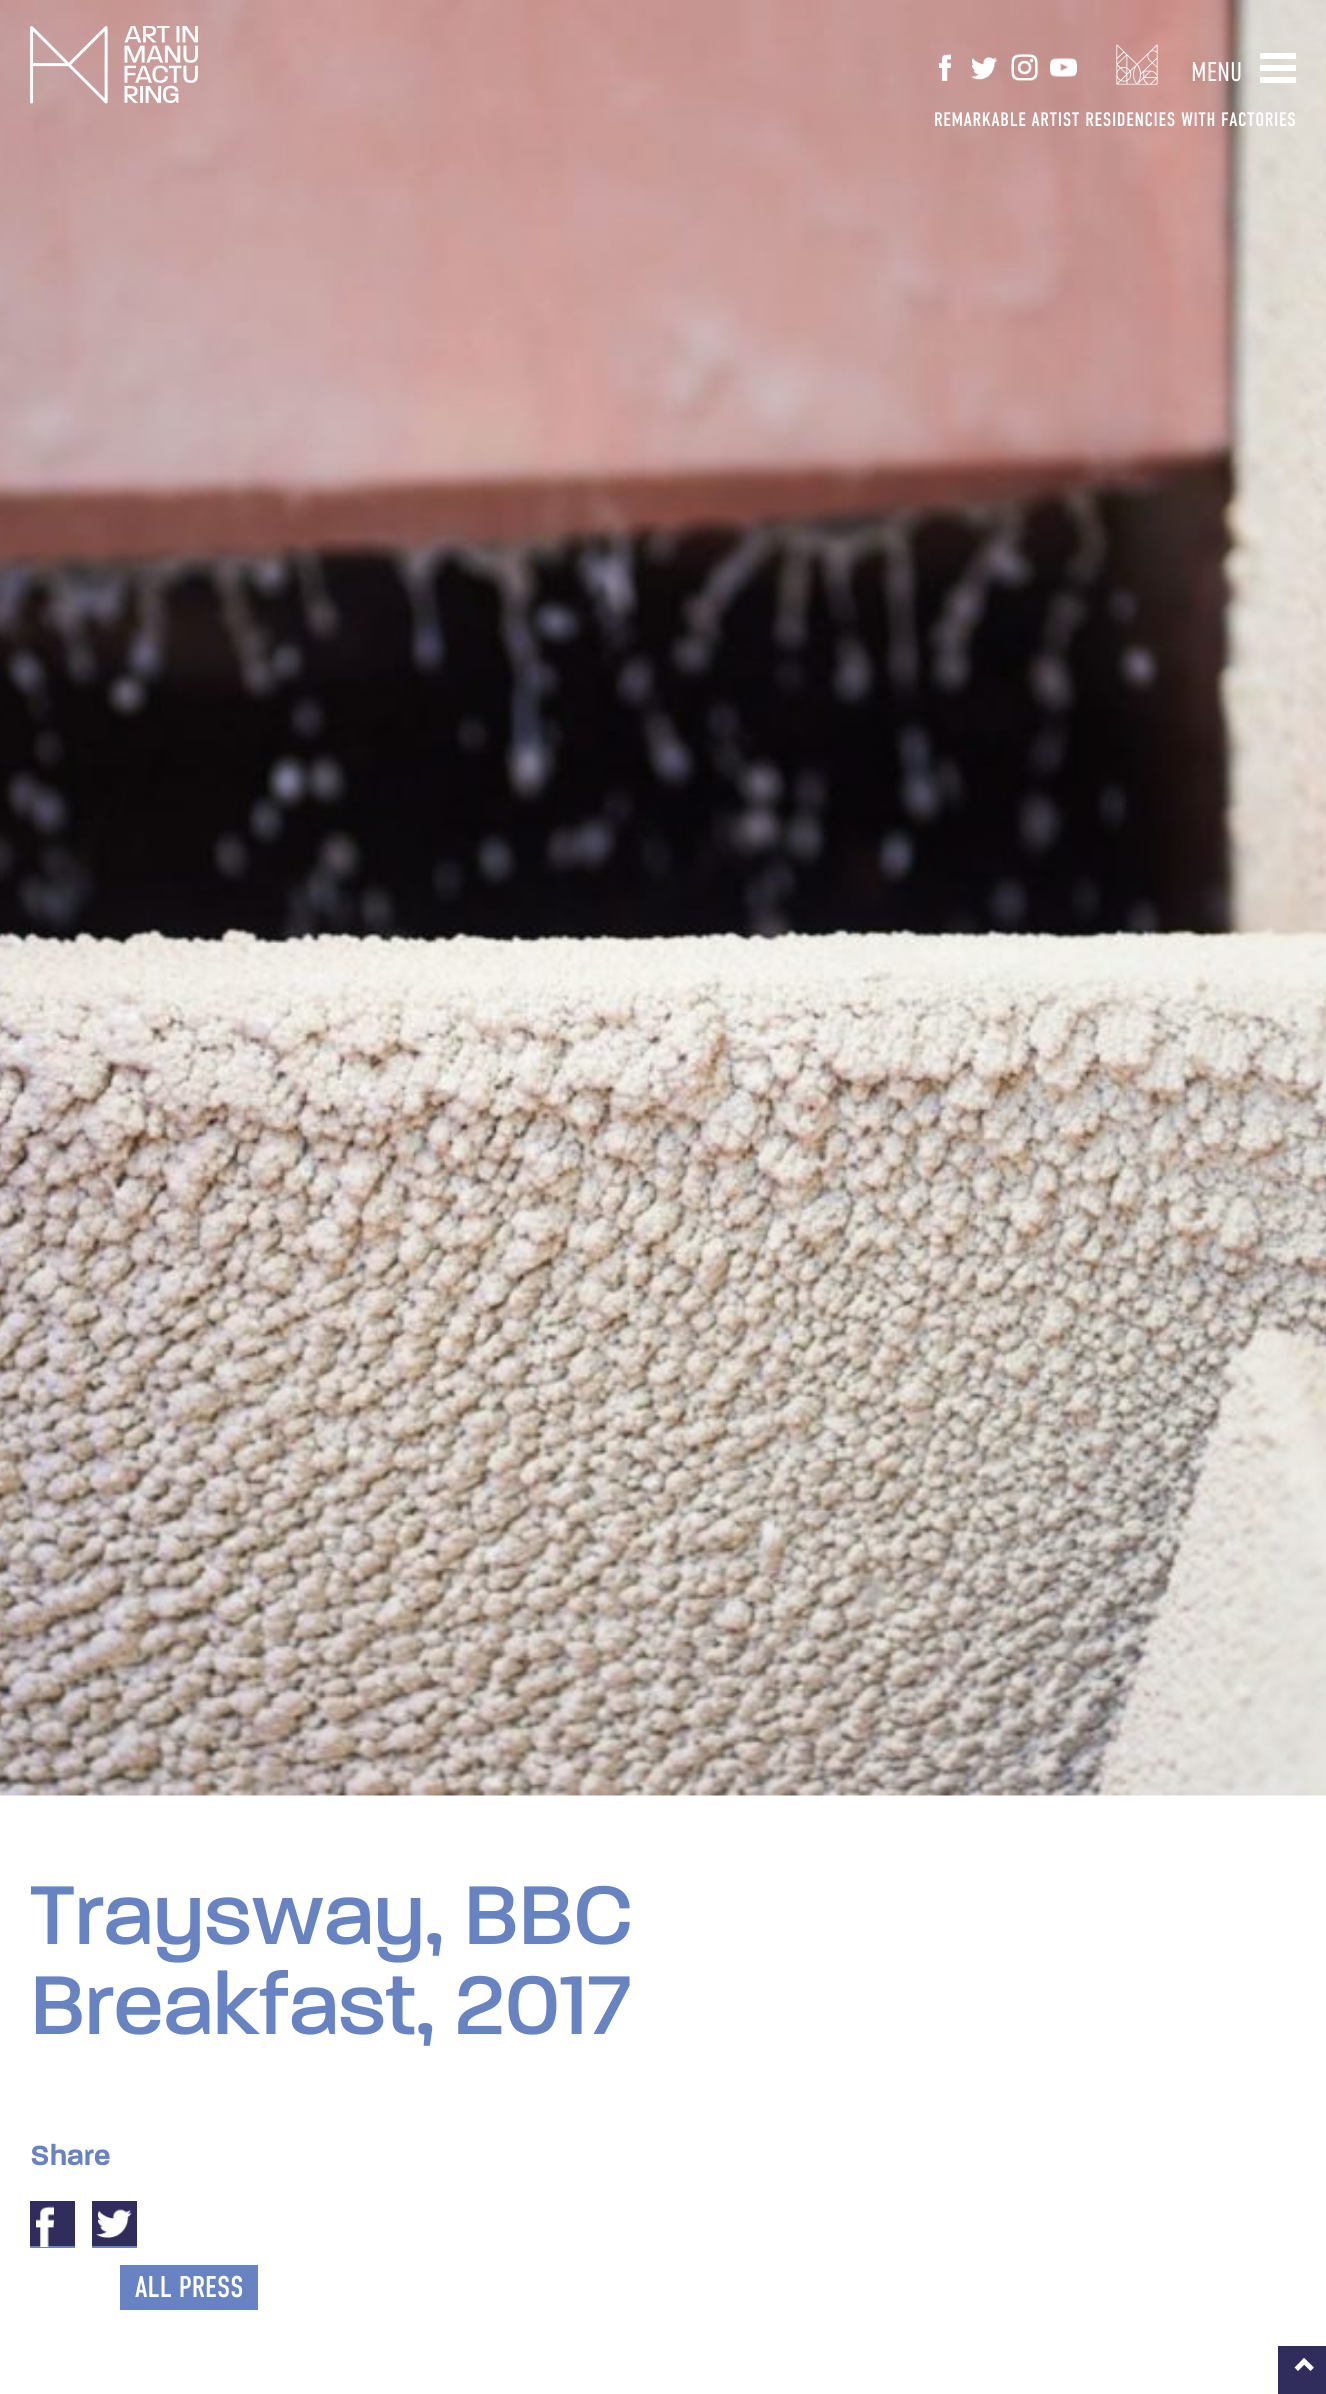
#include <cairo/cairo.h>
#include <math.h>
#include <stddef.h>


static void draw_spaced(cairo_t *cr, double x, double y, const char *s, double letter, double word) {
  cairo_move_to(cr, x, y);
  while (*s) {
    char ch[5] = {0};
    int n = 0;
    do ch[n++] = *s++; while ((*s & 0xC0) == 0x80);
    cairo_show_text(cr, ch);
    cairo_rel_move_to(cr, letter + word * (*ch == ' '), 0);
  }
}

static void draw_image(cairo_t *cr, const char *path, double x, double y, double w, double h) {
  cairo_surface_t *image = cairo_image_surface_create_from_png(path);
  cairo_save(cr);
  cairo_set_source_surface(cr, image, x, y);
  cairo_rectangle(cr, x, y, w, h);
  cairo_fill(cr);
  cairo_restore(cr);
  cairo_surface_destroy(image);
}

static void draw(cairo_t *cr) {
  cairo_set_source_rgb(cr, 1, 1, 1);
  cairo_paint(cr);
  draw_image(cr, "images/1.png", 0, 0, 1326, 1796);
  draw_image(cr, "images/2.png", 30, 26, 168, 78);
  draw_image(cr, "images/3.png", 939, 54, 12, 27);
  draw_image(cr, "images/4.png", 970, 57, 28, 23);
  draw_image(cr, "images/5.png", 1011, 54, 27, 27);
  draw_image(cr, "images/6.png", 1050, 58, 27, 19);
  draw_image(cr, "images/7.png", 1116, 44, 42, 41);
  cairo_set_source_rgb(cr, 1, 1, 1);
  cairo_rectangle(cr, 1260, 53, 36, 6);
  cairo_fill(cr);
  cairo_rectangle(cr, 1260, 65, 36, 6);
  cairo_fill(cr);
  cairo_rectangle(cr, 1260, 77, 36, 6);
  cairo_fill(cr);
  cairo_set_source_rgb(cr, 48 / 255.0, 44 / 255.0, 92 / 255.0);
  cairo_rectangle(cr, 30, 2201, 45, 45);
  cairo_fill(cr);
  cairo_set_source_rgb(cr, 104 / 255.0, 131 / 255.0, 193 / 255.0);
  cairo_rectangle(cr, 30, 2246, 45, 2);
  cairo_fill(cr);
  draw_image(cr, "images/8.png", 36, 2206, 18, 41);
  cairo_set_source_rgb(cr, 48 / 255.0, 44 / 255.0, 92 / 255.0);
  cairo_rectangle(cr, 92, 2201, 45, 45);
  cairo_fill(cr);
  cairo_set_source_rgb(cr, 104 / 255.0, 131 / 255.0, 193 / 255.0);
  cairo_rectangle(cr, 92, 2246, 45, 2);
  cairo_fill(cr);
  draw_image(cr, "images/9.png", 96, 2209, 36, 29);
  cairo_rectangle(cr, 120, 2265, 138, 45);
  cairo_fill(cr);
  cairo_set_source_rgb(cr, 48 / 255.0, 44 / 255.0, 92 / 255.0);
  cairo_rectangle(cr, 1278, 2346, 48, 48);
  cairo_fill(cr);
  cairo_set_source_rgb(cr, 1, 1, 1);
  cairo_new_path(cr);
  cairo_move_to(cr, 1304, 2358);
  cairo_line_to(cr, 1314, 2367.5);
  cairo_line_to(cr, 1310.5, 2371);
  cairo_line_to(cr, 1301, 2361.5);
  cairo_close_path(cr);
  cairo_fill(cr);
  cairo_new_path(cr);
  cairo_move_to(cr, 1304, 2358);
  cairo_line_to(cr, 1307.5, 2361.5);
  cairo_line_to(cr, 1298, 2371);
  cairo_line_to(cr, 1294.5, 2367.5);
  cairo_close_path(cr);
  cairo_fill(cr);
  cairo_select_font_face(cr, "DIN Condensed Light", CAIRO_FONT_SLANT_NORMAL, CAIRO_FONT_WEIGHT_NORMAL);
  cairo_set_font_size(cr, 27);
  cairo_move_to(cr, 1191, 81);
  cairo_show_text(cr, "MENU");
  cairo_select_font_face(cr, "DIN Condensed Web", CAIRO_FONT_SLANT_NORMAL, CAIRO_FONT_WEIGHT_NORMAL);
  cairo_set_font_size(cr, 19.5);
  draw_spaced(cr, 934, 126, "REMARKABLE ARTIST RESIDENCIES WITH FACTORIES", 0.6, 0);
  cairo_select_font_face(cr, "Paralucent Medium", CAIRO_FONT_SLANT_NORMAL, CAIRO_FONT_WEIGHT_NORMAL);
  cairo_set_font_size(cr, 90);
  cairo_set_source_rgb(cr, 104 / 255.0, 131 / 255.0, 193 / 255.0);
  cairo_move_to(cr, 30, 1944);
  cairo_show_text(cr, "Traysway, BBC");
  cairo_move_to(cr, 30, 2034);
  cairo_show_text(cr, "Breakfast, 2017");
  cairo_select_font_face(cr, "Paralucent SemiBold", CAIRO_FONT_SLANT_NORMAL, CAIRO_FONT_WEIGHT_NORMAL);
  cairo_set_font_size(cr, 30);
  cairo_move_to(cr, 30, 2165);
  cairo_show_text(cr, "Share");
  cairo_select_font_face(cr, "DIN Condensed Web", CAIRO_FONT_SLANT_NORMAL, CAIRO_FONT_WEIGHT_NORMAL);
  cairo_set_source_rgb(cr, 1, 1, 1);
  cairo_move_to(cr, 135, 2297);
  cairo_show_text(cr, "ALL PRESS");
}

int main(void) {
  cairo_surface_t *surface = cairo_image_surface_create(CAIRO_FORMAT_RGB24, 1326, 2394);
  cairo_t *cr = cairo_create(surface);
  cairo_font_options_t *options = cairo_font_options_create();
  cairo_font_options_set_hint_metrics(options, CAIRO_HINT_METRICS_OFF);
  cairo_font_options_set_hint_style(options, CAIRO_HINT_STYLE_NONE);
  cairo_set_font_options(cr, options);
  cairo_set_miter_limit(cr, 4);
  draw(cr);
  cairo_surface_write_to_png(surface, "out.png");
  cairo_font_options_destroy(options);
  cairo_destroy(cr);
  cairo_surface_destroy(surface);
  return 0;
}
